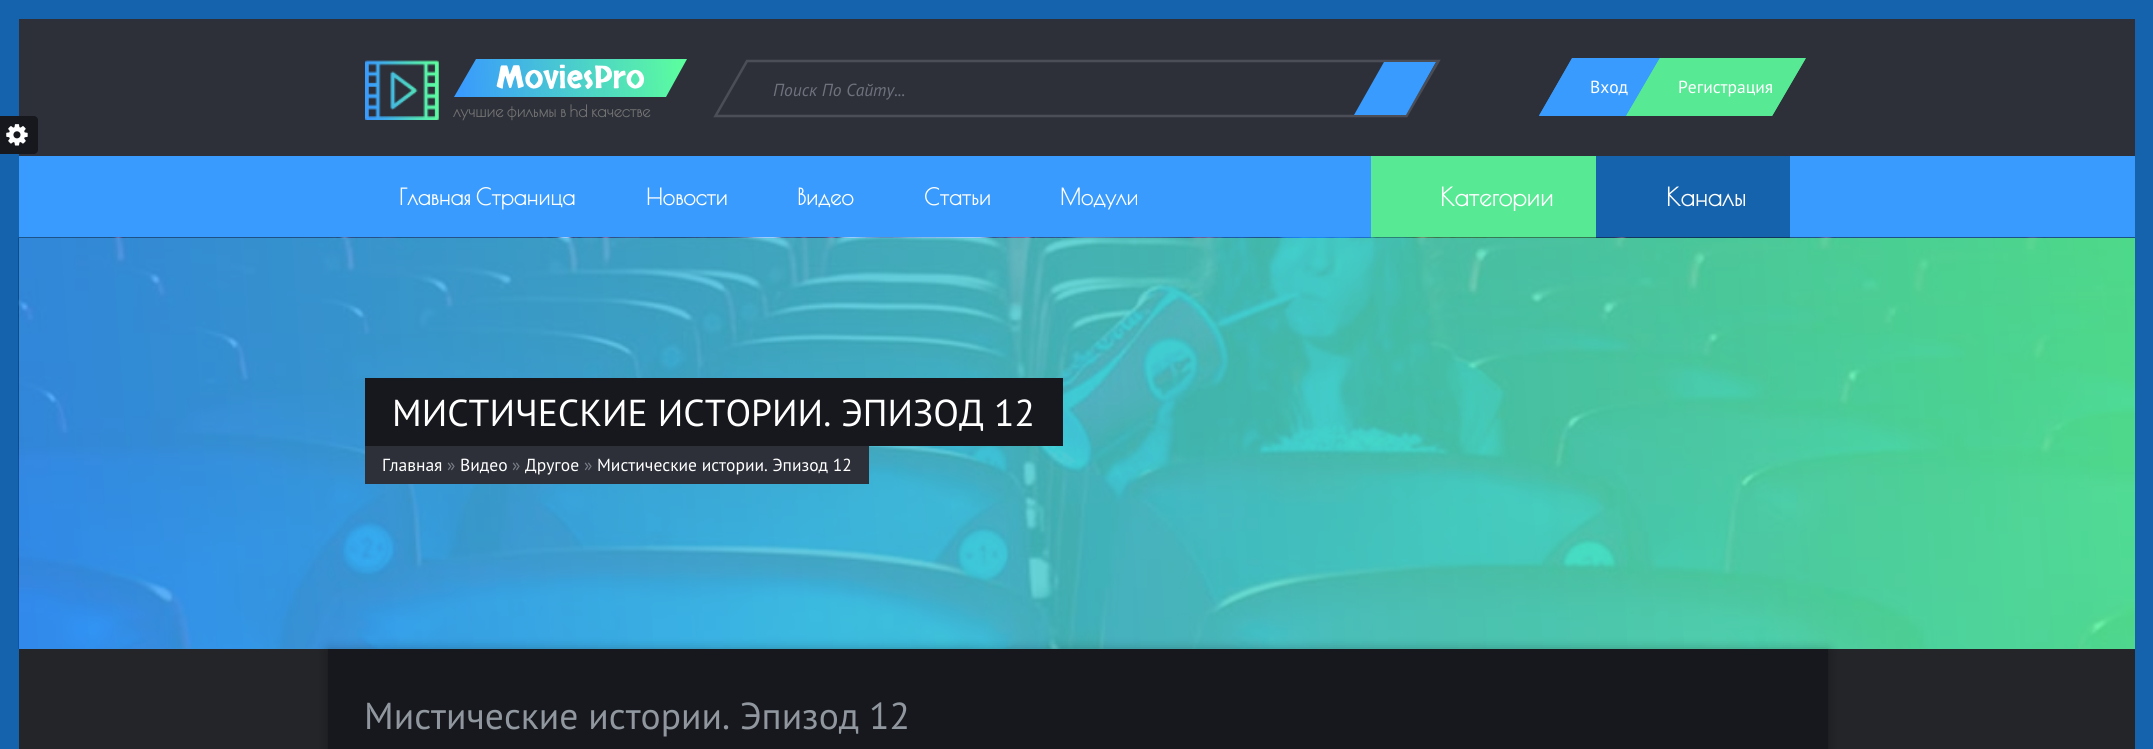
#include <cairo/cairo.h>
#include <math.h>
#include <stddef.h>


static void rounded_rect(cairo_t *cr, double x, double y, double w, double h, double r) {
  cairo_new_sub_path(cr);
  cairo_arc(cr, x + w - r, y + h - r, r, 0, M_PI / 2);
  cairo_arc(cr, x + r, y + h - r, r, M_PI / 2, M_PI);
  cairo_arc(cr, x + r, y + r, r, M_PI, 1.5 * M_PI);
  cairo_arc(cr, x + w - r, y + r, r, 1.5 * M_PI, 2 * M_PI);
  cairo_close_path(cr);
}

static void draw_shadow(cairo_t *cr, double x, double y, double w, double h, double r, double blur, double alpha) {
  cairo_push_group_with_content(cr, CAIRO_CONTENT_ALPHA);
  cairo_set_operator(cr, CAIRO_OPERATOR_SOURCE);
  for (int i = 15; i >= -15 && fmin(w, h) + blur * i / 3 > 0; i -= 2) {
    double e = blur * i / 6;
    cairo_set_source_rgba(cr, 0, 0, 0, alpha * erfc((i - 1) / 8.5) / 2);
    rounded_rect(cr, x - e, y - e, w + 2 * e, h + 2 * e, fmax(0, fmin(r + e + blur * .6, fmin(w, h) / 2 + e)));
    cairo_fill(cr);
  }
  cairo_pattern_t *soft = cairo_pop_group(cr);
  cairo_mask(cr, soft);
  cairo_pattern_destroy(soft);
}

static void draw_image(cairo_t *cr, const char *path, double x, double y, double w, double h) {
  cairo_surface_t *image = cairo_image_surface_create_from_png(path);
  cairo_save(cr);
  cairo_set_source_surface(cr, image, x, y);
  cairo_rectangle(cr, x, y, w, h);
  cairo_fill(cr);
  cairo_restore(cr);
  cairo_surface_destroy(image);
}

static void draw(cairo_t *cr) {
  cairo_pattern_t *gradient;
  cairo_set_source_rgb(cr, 36 / 255.0, 37 / 255.0, 41 / 255.0);
  cairo_paint(cr);
  cairo_rectangle(cr, 9.5, 9.5, 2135, 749);
  cairo_set_source_rgb(cr, 21 / 255.0, 98 / 255.0, 173 / 255.0);
  cairo_set_line_width(cr, 19);
  cairo_stroke(cr);
  cairo_set_source_rgb(cr, 45 / 255.0, 48 / 255.0, 57 / 255.0);
  cairo_rectangle(cr, 19, 19, 2116, 137);
  cairo_fill(cr);
  draw_image(cr, "images/1.png", 365, 60, 74, 60);
  gradient = cairo_pattern_create_linear(460, 86, 682, 71);
  cairo_pattern_add_color_stop_rgba(gradient, 0, 57 / 255.0, 155 / 255.0, 253 / 255.0, 1);
  cairo_pattern_add_color_stop_rgba(gradient, 0.62, 78 / 255.0, 216 / 255.0, 194 / 255.0, 1);
  cairo_pattern_add_color_stop_rgba(gradient, 0.81, 85 / 255.0, 233 / 255.0, 177 / 255.0, 1);
  cairo_pattern_add_color_stop_rgba(gradient, 1, 91 / 255.0, 253 / 255.0, 159 / 255.0, 1);
  cairo_set_source(cr, gradient);
  cairo_pattern_destroy(gradient);
  cairo_new_path(cr);
  cairo_move_to(cr, 476, 59);
  cairo_line_to(cr, 687, 59);
  cairo_line_to(cr, 666, 97);
  cairo_line_to(cr, 454, 97);
  cairo_close_path(cr);
  cairo_fill(cr);
  cairo_new_path(cr);
  cairo_move_to(cr, 747, 61);
  cairo_line_to(cr, 1438.5, 61);
  cairo_line_to(cr, 1406.5, 116);
  cairo_line_to(cr, 715.5, 116);
  cairo_close_path(cr);
  cairo_set_source_rgb(cr, 75 / 255.0, 78 / 255.0, 87 / 255.0);
  cairo_set_line_width(cr, 2.5);
  cairo_stroke(cr);
  cairo_set_source_rgb(cr, 57 / 255.0, 155 / 255.0, 254 / 255.0);
  cairo_new_path(cr);
  cairo_move_to(cr, 1384, 62);
  cairo_line_to(cr, 1436, 62);
  cairo_line_to(cr, 1406, 115);
  cairo_line_to(cr, 1354, 115);
  cairo_close_path(cr);
  cairo_fill(cr);
  cairo_new_path(cr);
  cairo_move_to(cr, 1572, 58);
  cairo_line_to(cr, 1661, 58);
  cairo_line_to(cr, 1628, 116);
  cairo_line_to(cr, 1539, 116);
  cairo_close_path(cr);
  cairo_fill(cr);
  cairo_new_path(cr);
  cairo_move_to(cr, 1572.5, 59);
  cairo_line_to(cr, 1660, 59);
  cairo_line_to(cr, 1627.5, 115);
  cairo_line_to(cr, 1540, 115);
  cairo_close_path(cr);
  cairo_set_line_width(cr, 1.2);
  cairo_stroke(cr);
  cairo_set_source_rgb(cr, 22 / 255.0, 24 / 255.0, 29 / 255.0);
  cairo_new_path(cr);
  cairo_move_to(cr, 0, 116);
  cairo_line_to(cr, 34, 116);
  cairo_curve_to(cr, 36, 116, 38, 118, 38, 120);
  cairo_line_to(cr, 38, 150);
  cairo_curve_to(cr, 38, 152, 36, 154, 34, 154);
  cairo_line_to(cr, 0, 154);
  cairo_close_path(cr);
  cairo_fill(cr);
  draw_image(cr, "images/2.png", 6, 124, 22, 22);
  cairo_set_source_rgb(cr, 57 / 255.0, 155 / 255.0, 254 / 255.0);
  cairo_rectangle(cr, 19, 156, 2116, 82);
  cairo_fill(cr);
  cairo_set_source_rgb(cr, 87 / 255.0, 233 / 255.0, 148 / 255.0);
  cairo_rectangle(cr, 1371, 156, 225, 82);
  cairo_fill(cr);
  cairo_set_source_rgb(cr, 21 / 255.0, 98 / 255.0, 173 / 255.0);
  cairo_rectangle(cr, 1596, 156, 194, 82);
  cairo_fill(cr);
  draw_image(cr, "images/3.png", 18, 237, 2117, 412);
  gradient = cairo_pattern_create_linear(10, 518, 2144, 368);
  cairo_pattern_add_color_stop_rgba(gradient, 0, 57 / 255.0, 155 / 255.0, 253 / 255.0, 0.85);
  cairo_pattern_add_color_stop_rgba(gradient, 0.62, 78 / 255.0, 216 / 255.0, 194 / 255.0, 0.85);
  cairo_pattern_add_color_stop_rgba(gradient, 0.81, 85 / 255.0, 233 / 255.0, 177 / 255.0, 0.85);
  cairo_pattern_add_color_stop_rgba(gradient, 1, 91 / 255.0, 253 / 255.0, 159 / 255.0, 0.85);
  cairo_set_source(cr, gradient);
  cairo_pattern_destroy(gradient);
  cairo_rectangle(cr, 19, 238, 2116, 411);
  cairo_fill(cr);
  cairo_set_source_rgb(cr, 22 / 255.0, 24 / 255.0, 29 / 255.0);
  cairo_rectangle(cr, 365, 378, 698, 68);
  cairo_fill(cr);
  cairo_set_source_rgb(cr, 45 / 255.0, 48 / 255.0, 57 / 255.0);
  cairo_rectangle(cr, 365, 446, 504, 38);
  cairo_fill(cr);
  cairo_set_source_rgb(cr, 0, 0, 0);
  draw_shadow(cr, 328, 650, 1500, 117, 0, 6, 0.3);
  cairo_set_source_rgb(cr, 22 / 255.0, 24 / 255.0, 29 / 255.0);
  cairo_rectangle(cr, 328, 649, 1500, 100);
  cairo_fill(cr);
  cairo_select_font_face(cr, "Skranji", CAIRO_FONT_SLANT_NORMAL, CAIRO_FONT_WEIGHT_NORMAL);
  cairo_set_font_size(cr, 31.25);
  cairo_set_source_rgb(cr, 1, 1, 1);
  cairo_move_to(cr, 496, 88);
  cairo_show_text(cr, "MoviesPro");
  cairo_select_font_face(cr, "Poiret One", CAIRO_FONT_SLANT_NORMAL, CAIRO_FONT_WEIGHT_BOLD);
  cairo_set_font_size(cr, 16.25);
  cairo_set_source_rgb(cr, 114 / 255.0, 114 / 255.0, 114 / 255.0);
  cairo_move_to(cr, 453, 117);
  cairo_show_text(cr, "лучшие фильмы в hd качестве");
  cairo_select_font_face(cr, "PT Sans", CAIRO_FONT_SLANT_ITALIC, CAIRO_FONT_WEIGHT_NORMAL);
  cairo_set_font_size(cr, 17.5);
  cairo_set_source_rgb(cr, 110 / 255.0, 114 / 255.0, 124 / 255.0);
  cairo_move_to(cr, 773, 96);
  cairo_show_text(cr, "Поиск По Сайту...");
  cairo_select_font_face(cr, "PT Sans", CAIRO_FONT_SLANT_NORMAL, CAIRO_FONT_WEIGHT_NORMAL);
  cairo_set_source_rgb(cr, 1, 1, 1);
  cairo_move_to(cr, 1590, 93);
  cairo_show_text(cr, "Вход");
  cairo_set_source_rgb(cr, 87 / 255.0, 233 / 255.0, 148 / 255.0);
  cairo_new_path(cr);
  cairo_move_to(cr, 1660, 58);
  cairo_line_to(cr, 1806, 58);
  cairo_line_to(cr, 1772, 116);
  cairo_line_to(cr, 1626, 116);
  cairo_close_path(cr);
  cairo_fill(cr);
  cairo_new_path(cr);
  cairo_move_to(cr, 1660, 59);
  cairo_line_to(cr, 1804.5, 59);
  cairo_line_to(cr, 1772, 115);
  cairo_line_to(cr, 1627.5, 115);
  cairo_close_path(cr);
  cairo_stroke(cr);
  cairo_set_source_rgb(cr, 1, 1, 1);
  cairo_move_to(cr, 1678, 93);
  cairo_show_text(cr, "Регистрация");
  cairo_select_font_face(cr, "Poiret One", CAIRO_FONT_SLANT_NORMAL, CAIRO_FONT_WEIGHT_BOLD);
  cairo_set_font_size(cr, 22.5);
  cairo_move_to(cr, 399, 205);
  cairo_show_text(cr, "Главная Страница");
  cairo_move_to(cr, 646, 205);
  cairo_show_text(cr, "Новости");
  cairo_move_to(cr, 797, 205);
  cairo_show_text(cr, "Видео");
  cairo_move_to(cr, 924, 205);
  cairo_show_text(cr, "Статьи");
  cairo_move_to(cr, 1060, 205);
  cairo_show_text(cr, "Модули");
  cairo_set_font_size(cr, 25);
  cairo_move_to(cr, 1440, 206);
  cairo_show_text(cr, "Категории");
  cairo_move_to(cr, 1666, 206);
  cairo_show_text(cr, "Каналы");
  cairo_select_font_face(cr, "PT Sans", CAIRO_FONT_SLANT_NORMAL, CAIRO_FONT_WEIGHT_NORMAL);
  cairo_set_font_size(cr, 37.5);
  cairo_move_to(cr, 392, 426);
  cairo_show_text(cr, "МИСТИЧЕСКИЕ ИСТОРИИ. ЭПИЗОД 12");
  cairo_set_font_size(cr, 17.5);
  cairo_move_to(cr, 382, 471);
  cairo_show_text(cr, "Главная");
  cairo_set_source_rgb(cr, 120 / 255.0, 125 / 255.0, 133 / 255.0);
  cairo_move_to(cr, 447, 471);
  cairo_show_text(cr, "»");
  cairo_set_source_rgb(cr, 1, 1, 1);
  cairo_move_to(cr, 460, 471);
  cairo_show_text(cr, "Видео");
  cairo_set_source_rgb(cr, 120 / 255.0, 125 / 255.0, 133 / 255.0);
  cairo_move_to(cr, 512, 471);
  cairo_show_text(cr, "»");
  cairo_set_source_rgb(cr, 1, 1, 1);
  cairo_move_to(cr, 525, 471);
  cairo_show_text(cr, "Другое");
  cairo_set_source_rgb(cr, 120 / 255.0, 125 / 255.0, 133 / 255.0);
  cairo_move_to(cr, 584, 471);
  cairo_show_text(cr, "»");
  cairo_set_source_rgb(cr, 1, 1, 1);
  cairo_move_to(cr, 597, 471);
  cairo_show_text(cr, "Мистические истории. Эпизод 12");
  cairo_set_font_size(cr, 37.5);
  cairo_set_source_rgb(cr, 145 / 255.0, 151 / 255.0, 159 / 255.0);
  cairo_move_to(cr, 364, 729);
  cairo_show_text(cr, "Мистические истории. Эпизод 12");
}

int main(void) {
  cairo_surface_t *surface = cairo_image_surface_create(CAIRO_FORMAT_RGB24, 2153, 749);
  cairo_t *cr = cairo_create(surface);
  cairo_font_options_t *options = cairo_font_options_create();
  cairo_font_options_set_hint_metrics(options, CAIRO_HINT_METRICS_OFF);
  cairo_font_options_set_hint_style(options, CAIRO_HINT_STYLE_NONE);
  cairo_set_font_options(cr, options);
  cairo_set_miter_limit(cr, 4);
  draw(cr);
  cairo_surface_write_to_png(surface, "out.png");
  cairo_font_options_destroy(options);
  cairo_destroy(cr);
  cairo_surface_destroy(surface);
  return 0;
}
